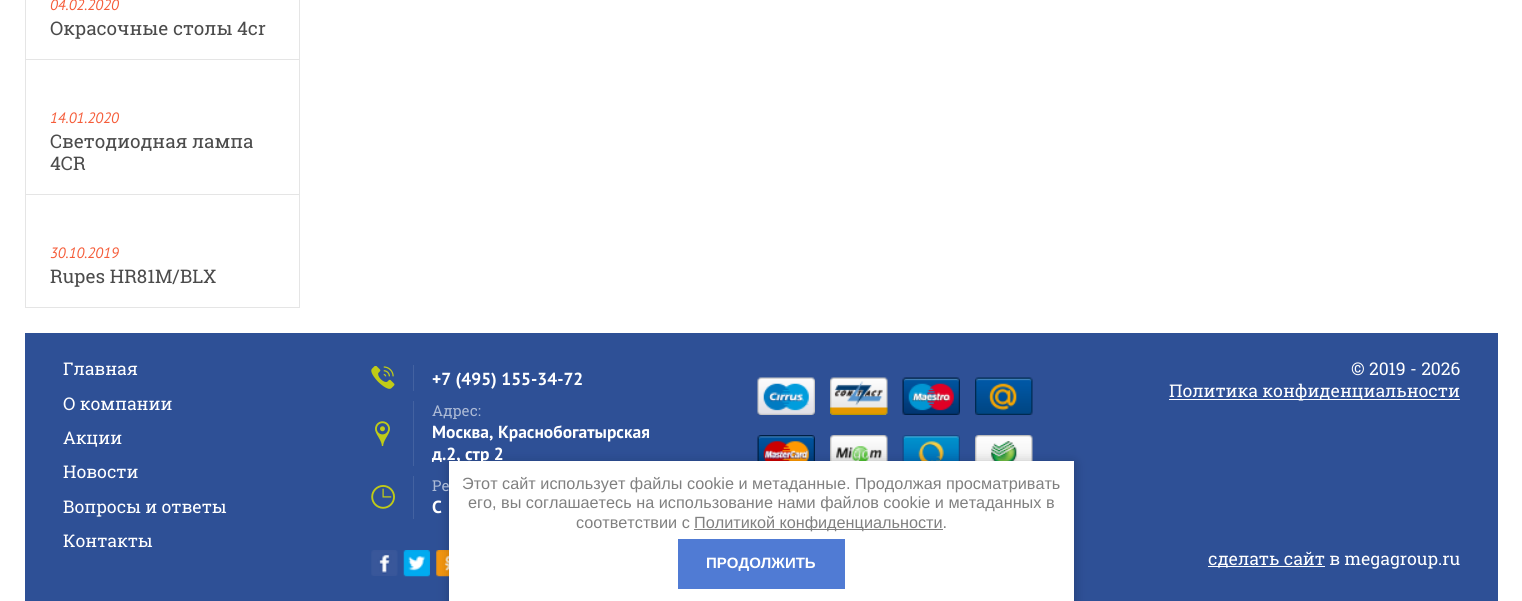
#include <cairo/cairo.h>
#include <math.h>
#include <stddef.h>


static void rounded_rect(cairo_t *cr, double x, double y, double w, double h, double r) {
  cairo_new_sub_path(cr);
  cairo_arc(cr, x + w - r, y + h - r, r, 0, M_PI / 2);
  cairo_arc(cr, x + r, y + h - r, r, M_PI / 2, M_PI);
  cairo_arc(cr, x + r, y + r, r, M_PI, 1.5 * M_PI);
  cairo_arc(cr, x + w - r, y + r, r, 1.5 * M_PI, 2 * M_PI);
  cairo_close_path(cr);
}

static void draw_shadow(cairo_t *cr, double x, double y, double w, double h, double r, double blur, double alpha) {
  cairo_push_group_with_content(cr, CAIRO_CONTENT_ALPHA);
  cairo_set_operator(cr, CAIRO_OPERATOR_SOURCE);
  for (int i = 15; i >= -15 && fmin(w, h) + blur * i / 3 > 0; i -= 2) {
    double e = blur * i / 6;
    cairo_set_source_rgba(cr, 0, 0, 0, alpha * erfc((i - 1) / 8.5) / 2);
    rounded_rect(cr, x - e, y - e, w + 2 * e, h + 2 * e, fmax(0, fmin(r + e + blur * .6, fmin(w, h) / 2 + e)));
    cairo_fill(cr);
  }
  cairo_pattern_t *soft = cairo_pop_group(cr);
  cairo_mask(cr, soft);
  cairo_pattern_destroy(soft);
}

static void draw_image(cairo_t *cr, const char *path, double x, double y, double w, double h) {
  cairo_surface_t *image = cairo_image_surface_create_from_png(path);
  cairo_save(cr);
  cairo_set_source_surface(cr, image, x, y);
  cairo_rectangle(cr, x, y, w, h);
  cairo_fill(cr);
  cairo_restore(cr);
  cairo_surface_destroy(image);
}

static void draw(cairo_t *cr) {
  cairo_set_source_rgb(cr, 1, 1, 1);
  cairo_paint(cr);
  cairo_rectangle(cr, 25.5, -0.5, 274, 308);
  cairo_set_source_rgb(cr, 229 / 255.0, 229 / 255.0, 229 / 255.0);
  cairo_set_line_width(cr, 1);
  cairo_stroke(cr);
  cairo_rectangle(cr, 26, 59, 273, 1);
  cairo_fill(cr);
  cairo_rectangle(cr, 26, 194, 273, 1);
  cairo_fill(cr);
  cairo_set_source_rgb(cr, 46 / 255.0, 80 / 255.0, 150 / 255.0);
  cairo_rectangle(cr, 25, 333, 1473, 268);
  cairo_fill(cr);
  cairo_set_source_rgb(cr, 67 / 255.0, 98 / 255.0, 161 / 255.0);
  cairo_rectangle(cr, 413, 365, 1, 26);
  cairo_fill(cr);
  draw_image(cr, "images/1.png", 371, 366, 24, 23);
  cairo_rectangle(cr, 413, 401, 1, 65);
  cairo_fill(cr);
  draw_image(cr, "images/2.png", 375, 421, 15, 25);
  cairo_rectangle(cr, 413, 476, 1, 43);
  cairo_fill(cr);
  draw_image(cr, "images/3.png", 371, 485, 24, 24);
  draw_image(cr, "images/4.png", 371, 550, 27, 26);
  draw_image(cr, "images/5.png", 403, 550, 27, 27);
  draw_image(cr, "images/6.png", 436, 550, 13, 27);
  draw_image(cr, "images/7.png", 757, 377, 58, 38);
  draw_image(cr, "images/8.png", 830, 377, 58, 38);
  draw_image(cr, "images/9.png", 902, 377, 58, 38);
  draw_image(cr, "images/10.png", 975, 377, 58, 38);
  draw_image(cr, "images/11.png", 757, 435, 58, 26);
  draw_image(cr, "images/12.png", 830, 435, 58, 26);
  draw_image(cr, "images/13.png", 902, 435, 58, 26);
  draw_image(cr, "images/14.png", 975, 435, 58, 26);
  cairo_set_source_rgb(cr, 1, 1, 1);
  cairo_rectangle(cr, 1169, 399, 291, 1);
  cairo_fill(cr);
  cairo_rectangle(cr, 1208, 566, 117, 1);
  cairo_fill(cr);
  cairo_set_source_rgb(cr, 0, 0, 0);
  draw_shadow(cr, 449, 463, 625, 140, 0, 6, 0.23);
  cairo_set_source_rgb(cr, 1, 1, 1);
  cairo_rectangle(cr, 449, 461, 625, 140);
  cairo_fill(cr);
  cairo_set_source_rgb(cr, 128 / 255.0, 128 / 255.0, 128 / 255.0);
  cairo_rectangle(cr, 694, 529, 249, 1);
  cairo_fill(cr);
  cairo_set_source_rgb(cr, 80 / 255.0, 123 / 255.0, 212 / 255.0);
  cairo_rectangle(cr, 678, 539, 167, 50);
  cairo_fill(cr);
  cairo_select_font_face(cr, "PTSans", CAIRO_FONT_SLANT_ITALIC, CAIRO_FONT_WEIGHT_NORMAL);
  cairo_set_font_size(cr, 15);
  cairo_set_source_rgb(cr, 245 / 255.0, 92 / 255.0, 57 / 255.0);
  cairo_move_to(cr, 50, 10);
  cairo_show_text(cr, "04.02.2020");
  cairo_select_font_face(cr, "Roboto Slab", CAIRO_FONT_SLANT_NORMAL, CAIRO_FONT_WEIGHT_NORMAL);
  cairo_set_font_size(cr, 18.75);
  cairo_set_source_rgb(cr, 75 / 255.0, 75 / 255.0, 75 / 255.0);
  cairo_move_to(cr, 50, 35);
  cairo_show_text(cr, "Окрасочные столы 4cr");
  cairo_select_font_face(cr, "PTSans", CAIRO_FONT_SLANT_ITALIC, CAIRO_FONT_WEIGHT_NORMAL);
  cairo_set_font_size(cr, 15);
  cairo_set_source_rgb(cr, 245 / 255.0, 92 / 255.0, 57 / 255.0);
  cairo_move_to(cr, 50, 123);
  cairo_show_text(cr, "14.01.2020");
  cairo_select_font_face(cr, "Roboto Slab", CAIRO_FONT_SLANT_NORMAL, CAIRO_FONT_WEIGHT_NORMAL);
  cairo_set_font_size(cr, 18.75);
  cairo_set_source_rgb(cr, 75 / 255.0, 75 / 255.0, 75 / 255.0);
  cairo_move_to(cr, 50, 148);
  cairo_show_text(cr, "Cветодиодная лампа");
  cairo_move_to(cr, 50, 170);
  cairo_show_text(cr, "4CR");
  cairo_select_font_face(cr, "PTSans", CAIRO_FONT_SLANT_ITALIC, CAIRO_FONT_WEIGHT_NORMAL);
  cairo_set_font_size(cr, 15);
  cairo_set_source_rgb(cr, 245 / 255.0, 92 / 255.0, 57 / 255.0);
  cairo_move_to(cr, 50, 258);
  cairo_show_text(cr, "30.10.2019");
  cairo_select_font_face(cr, "Roboto Slab", CAIRO_FONT_SLANT_NORMAL, CAIRO_FONT_WEIGHT_NORMAL);
  cairo_set_font_size(cr, 18.75);
  cairo_set_source_rgb(cr, 75 / 255.0, 75 / 255.0, 75 / 255.0);
  cairo_move_to(cr, 50, 283);
  cairo_show_text(cr, "Rupes HR81M/BLX");
  cairo_set_font_size(cr, 17.5);
  cairo_set_source_rgb(cr, 1, 1, 1);
  cairo_move_to(cr, 63, 375);
  cairo_show_text(cr, "Главная");
  cairo_move_to(cr, 63, 410);
  cairo_show_text(cr, "О компании");
  cairo_move_to(cr, 63, 444);
  cairo_show_text(cr, "Акции");
  cairo_move_to(cr, 63, 478);
  cairo_show_text(cr, "Новости");
  cairo_move_to(cr, 63, 513);
  cairo_show_text(cr, "Вопросы и ответы");
  cairo_move_to(cr, 63, 547);
  cairo_show_text(cr, "Контакты");
  cairo_select_font_face(cr, "PTSans", CAIRO_FONT_SLANT_NORMAL, CAIRO_FONT_WEIGHT_BOLD);
  cairo_move_to(cr, 432, 385);
  cairo_show_text(cr, "+7 (495) 155-34-72");
  cairo_select_font_face(cr, "Roboto Slab", CAIRO_FONT_SLANT_NORMAL, CAIRO_FONT_WEIGHT_NORMAL);
  cairo_set_font_size(cr, 15);
  cairo_set_source_rgb(cr, 173 / 255.0, 187 / 255.0, 214 / 255.0);
  cairo_move_to(cr, 432, 416);
  cairo_show_text(cr, "Адрес:");
  cairo_select_font_face(cr, "PTSans", CAIRO_FONT_SLANT_NORMAL, CAIRO_FONT_WEIGHT_BOLD);
  cairo_set_font_size(cr, 17.5);
  cairo_set_source_rgb(cr, 1, 1, 1);
  cairo_move_to(cr, 432, 438);
  cairo_show_text(cr, "Москва, Краснобогатырская");
  cairo_move_to(cr, 432, 460);
  cairo_show_text(cr, "д.2, стр 2");
  cairo_select_font_face(cr, "Roboto Slab", CAIRO_FONT_SLANT_NORMAL, CAIRO_FONT_WEIGHT_NORMAL);
  cairo_set_font_size(cr, 15);
  cairo_set_source_rgb(cr, 173 / 255.0, 187 / 255.0, 214 / 255.0);
  cairo_move_to(cr, 432, 491);
  cairo_show_text(cr, "Ре");
  cairo_select_font_face(cr, "PTSans", CAIRO_FONT_SLANT_NORMAL, CAIRO_FONT_WEIGHT_BOLD);
  cairo_set_font_size(cr, 17.5);
  cairo_set_source_rgb(cr, 1, 1, 1);
  cairo_move_to(cr, 432, 513);
  cairo_show_text(cr, "C");
  cairo_select_font_face(cr, "Roboto Slab", CAIRO_FONT_SLANT_NORMAL, CAIRO_FONT_WEIGHT_NORMAL);
  cairo_move_to(cr, 1351, 375);
  cairo_show_text(cr, "© 2019 - 2026");
  cairo_move_to(cr, 1169, 397);
  cairo_show_text(cr, "Политика конфиденциальности");
  cairo_move_to(cr, 1208, 565);
  cairo_show_text(cr, "сделать сайт в megagroup.ru");
  cairo_select_font_face(cr, "Liberation Sans", CAIRO_FONT_SLANT_NORMAL, CAIRO_FONT_WEIGHT_NORMAL);
  cairo_set_font_size(cr, 16.25);
  cairo_set_source_rgb(cr, 128 / 255.0, 128 / 255.0, 128 / 255.0);
  cairo_move_to(cr, 462, 489);
  cairo_show_text(cr, "Этот сайт использует файлы cookie и метаданные. Продолжая просматривать");
  cairo_move_to(cr, 468, 508);
  cairo_show_text(cr, "его, вы соглашаетесь на использование нами файлов cookie и метаданных в");
  cairo_move_to(cr, 576, 528);
  cairo_show_text(cr, "соответствии с");
  cairo_move_to(cr, 694, 528);
  cairo_show_text(cr, "Политикой конфиденциальности.");
  cairo_select_font_face(cr, "Liberation Sans", CAIRO_FONT_SLANT_NORMAL, CAIRO_FONT_WEIGHT_BOLD);
  cairo_set_font_size(cr, 15);
  cairo_set_source_rgb(cr, 1, 1, 1);
  cairo_move_to(cr, 706, 568);
  cairo_show_text(cr, "ПРОДОЛЖИТЬ");
}

int main(void) {
  cairo_surface_t *surface = cairo_image_surface_create(CAIRO_FORMAT_RGB24, 1522, 601);
  cairo_t *cr = cairo_create(surface);
  cairo_font_options_t *options = cairo_font_options_create();
  cairo_font_options_set_hint_metrics(options, CAIRO_HINT_METRICS_OFF);
  cairo_font_options_set_hint_style(options, CAIRO_HINT_STYLE_NONE);
  cairo_set_font_options(cr, options);
  cairo_set_miter_limit(cr, 4);
  draw(cr);
  cairo_surface_write_to_png(surface, "out.png");
  cairo_font_options_destroy(options);
  cairo_destroy(cr);
  cairo_surface_destroy(surface);
  return 0;
}
